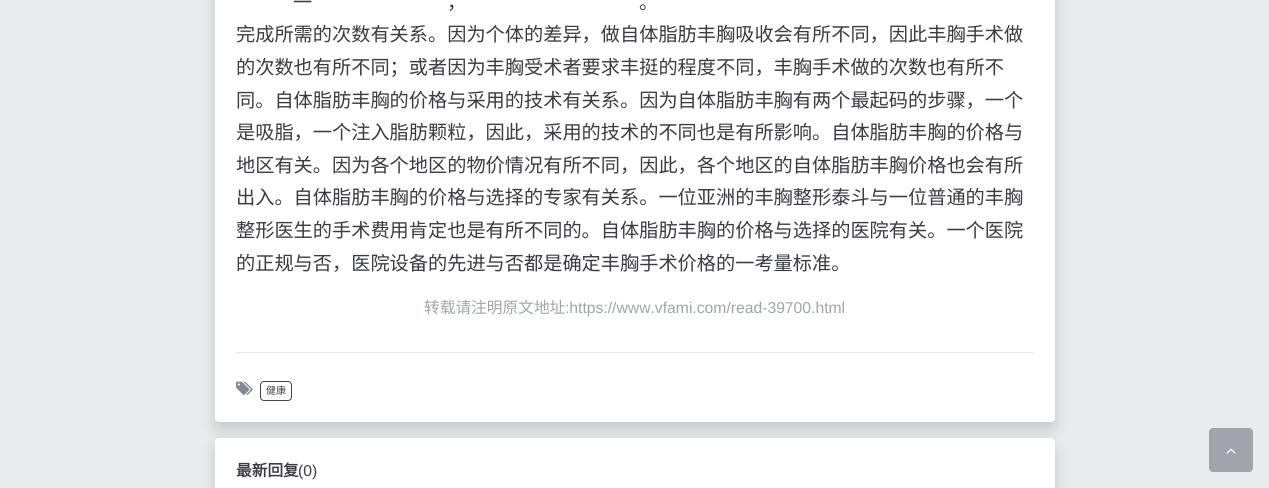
#include <cairo/cairo.h>
#include <math.h>
#include <stddef.h>


static void rounded_rect(cairo_t *cr, double x, double y, double w, double h, double r) {
  cairo_new_sub_path(cr);
  cairo_arc(cr, x + w - r, y + h - r, r, 0, M_PI / 2);
  cairo_arc(cr, x + r, y + h - r, r, M_PI / 2, M_PI);
  cairo_arc(cr, x + r, y + r, r, M_PI, 1.5 * M_PI);
  cairo_arc(cr, x + w - r, y + r, r, 1.5 * M_PI, 2 * M_PI);
  cairo_close_path(cr);
}

static void draw_shadow(cairo_t *cr, double x, double y, double w, double h, double r, double blur, double alpha) {
  cairo_push_group_with_content(cr, CAIRO_CONTENT_ALPHA);
  cairo_set_operator(cr, CAIRO_OPERATOR_SOURCE);
  for (int i = 15; i >= -15 && fmin(w, h) + blur * i / 3 > 0; i -= 2) {
    double e = blur * i / 6;
    cairo_set_source_rgba(cr, 0, 0, 0, alpha * erfc((i - 1) / 8.5) / 2);
    rounded_rect(cr, x - e, y - e, w + 2 * e, h + 2 * e, fmax(0, fmin(r + e + blur * .6, fmin(w, h) / 2 + e)));
    cairo_fill(cr);
  }
  cairo_pattern_t *soft = cairo_pop_group(cr);
  cairo_mask(cr, soft);
  cairo_pattern_destroy(soft);
}

static void draw_image(cairo_t *cr, const char *path, double x, double y, double w, double h) {
  cairo_surface_t *image = cairo_image_surface_create_from_png(path);
  cairo_save(cr);
  cairo_set_source_surface(cr, image, x, y);
  cairo_rectangle(cr, x, y, w, h);
  cairo_fill(cr);
  cairo_restore(cr);
  cairo_surface_destroy(image);
}

static void draw(cairo_t *cr) {
  cairo_set_source_rgb(cr, 233 / 255.0, 236 / 255.0, 239 / 255.0);
  cairo_paint(cr);
  cairo_set_source_rgb(cr, 0, 0, 0);
  draw_shadow(cr, 215, -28, 840, 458, 4, 8, 0.15);
  cairo_set_source_rgb(cr, 1, 1, 1);
  rounded_rect(cr, 215.5, -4.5, 839, 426, 3.5);
  cairo_fill_preserve(cr);
  cairo_set_line_width(cr, 1);
  cairo_stroke(cr);
  cairo_set_source_rgb(cr, 230 / 255.0, 230 / 255.0, 230 / 255.0);
  cairo_rectangle(cr, 236, 352, 798, 1);
  cairo_fill(cr);
  draw_image(cr, "images/1.png", 236, 381, 17, 14);
  rounded_rect(cr, 260.5, 381.5, 31, 19, 3.5);
  cairo_set_source_rgb(cr, 68 / 255.0, 68 / 255.0, 68 / 255.0);
  cairo_stroke(cr);
  cairo_set_source_rgb(cr, 0, 0, 0);
  draw_shadow(cr, 215, 446, 840, 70, 4, 8, 0.15);
  cairo_set_source_rgb(cr, 1, 1, 1);
  rounded_rect(cr, 215.5, 438.5, 839, 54, 3.5);
  cairo_fill_preserve(cr);
  cairo_stroke(cr);
  cairo_set_source_rgb(cr, 162 / 255.0, 164 / 255.0, 172 / 255.0);
  rounded_rect(cr, 1209, 428, 44, 44, 4);
  cairo_fill(cr);
  draw_image(cr, "images/2.png", 1226, 448, 10, 6);
  cairo_select_font_face(cr, "Noto Sans CJK SC", CAIRO_FONT_SLANT_NORMAL, CAIRO_FONT_WEIGHT_NORMAL);
  cairo_set_font_size(cr, 19.2);
  cairo_set_source_rgb(cr, 58 / 255.0, 59 / 255.0, 69 / 255.0);
  cairo_move_to(cr, 293, 9);
  cairo_show_text(cr, "一");
  cairo_move_to(cr, 447, 9);
  cairo_show_text(cr, "，");
  cairo_move_to(cr, 639, 9);
  cairo_show_text(cr, "。");
  cairo_move_to(cr, 236, 41);
  cairo_show_text(cr, "完成所需的次数有关系。因为个体的差异，做自体脂肪丰胸吸收会有所不同，因此丰胸手术做");
  cairo_move_to(cr, 236, 74);
  cairo_show_text(cr, "的次数也有所不同；或者因为丰胸受术者要求丰挺的程度不同，丰胸手术做的次数也有所不");
  cairo_move_to(cr, 236, 107);
  cairo_show_text(cr, "同。自体脂肪丰胸的价格与采用的技术有关系。因为自体脂肪丰胸有两个最起码的步骤，一个");
  cairo_move_to(cr, 236, 139);
  cairo_show_text(cr, "是吸脂，一个注入脂肪颗粒，因此，采用的技术的不同也是有所影响。自体脂肪丰胸的价格与");
  cairo_move_to(cr, 236, 172);
  cairo_show_text(cr, "地区有关。因为各个地区的物价情况有所不同，因此，各个地区的自体脂肪丰胸价格也会有所");
  cairo_move_to(cr, 236, 204);
  cairo_show_text(cr, "出入。自体脂肪丰胸的价格与选择的专家有关系。一位亚洲的丰胸整形泰斗与一位普通的丰胸");
  cairo_move_to(cr, 236, 237);
  cairo_show_text(cr, "整形医生的手术费用肯定也是有所不同的。自体脂肪丰胸的价格与选择的医院有关。一个医院");
  cairo_move_to(cr, 236, 270);
  cairo_show_text(cr, "的正规与否，医院设备的先进与否都是确定丰胸手术价格的一考量标准。");
  cairo_set_font_size(cr, 15.7);
  cairo_set_source_rgb(cr, 158 / 255.0, 165 / 255.0, 171 / 255.0);
  cairo_move_to(cr, 424, 313);
  cairo_show_text(cr, "转载请注明原文地址");
  cairo_select_font_face(cr, "Liberation Sans", CAIRO_FONT_SLANT_NORMAL, CAIRO_FONT_WEIGHT_NORMAL);
  cairo_move_to(cr, 565, 313);
  cairo_show_text(cr, ":https://www.vfami.com/read-39700.html");
  cairo_select_font_face(cr, "Noto Sans CJK SC", CAIRO_FONT_SLANT_NORMAL, CAIRO_FONT_WEIGHT_NORMAL);
  cairo_set_font_size(cr, 10);
  cairo_set_source_rgb(cr, 68 / 255.0, 68 / 255.0, 68 / 255.0);
  cairo_move_to(cr, 266, 394);
  cairo_show_text(cr, "健康");
  cairo_select_font_face(cr, "Noto Sans CJK SC", CAIRO_FONT_SLANT_NORMAL, CAIRO_FONT_WEIGHT_BOLD);
  cairo_set_font_size(cr, 15.7);
  cairo_set_source_rgb(cr, 58 / 255.0, 59 / 255.0, 69 / 255.0);
  cairo_move_to(cr, 236, 476);
  cairo_show_text(cr, "最新回复");
  cairo_select_font_face(cr, "Liberation Sans", CAIRO_FONT_SLANT_NORMAL, CAIRO_FONT_WEIGHT_NORMAL);
  cairo_move_to(cr, 298, 476);
  cairo_show_text(cr, "(0)");
}

int main(void) {
  cairo_surface_t *surface = cairo_image_surface_create(CAIRO_FORMAT_RGB24, 1269, 488);
  cairo_t *cr = cairo_create(surface);
  cairo_font_options_t *options = cairo_font_options_create();
  cairo_font_options_set_hint_metrics(options, CAIRO_HINT_METRICS_OFF);
  cairo_font_options_set_hint_style(options, CAIRO_HINT_STYLE_NONE);
  cairo_set_font_options(cr, options);
  cairo_set_miter_limit(cr, 4);
  draw(cr);
  cairo_surface_write_to_png(surface, "out.png");
  cairo_font_options_destroy(options);
  cairo_destroy(cr);
  cairo_surface_destroy(surface);
  return 0;
}
